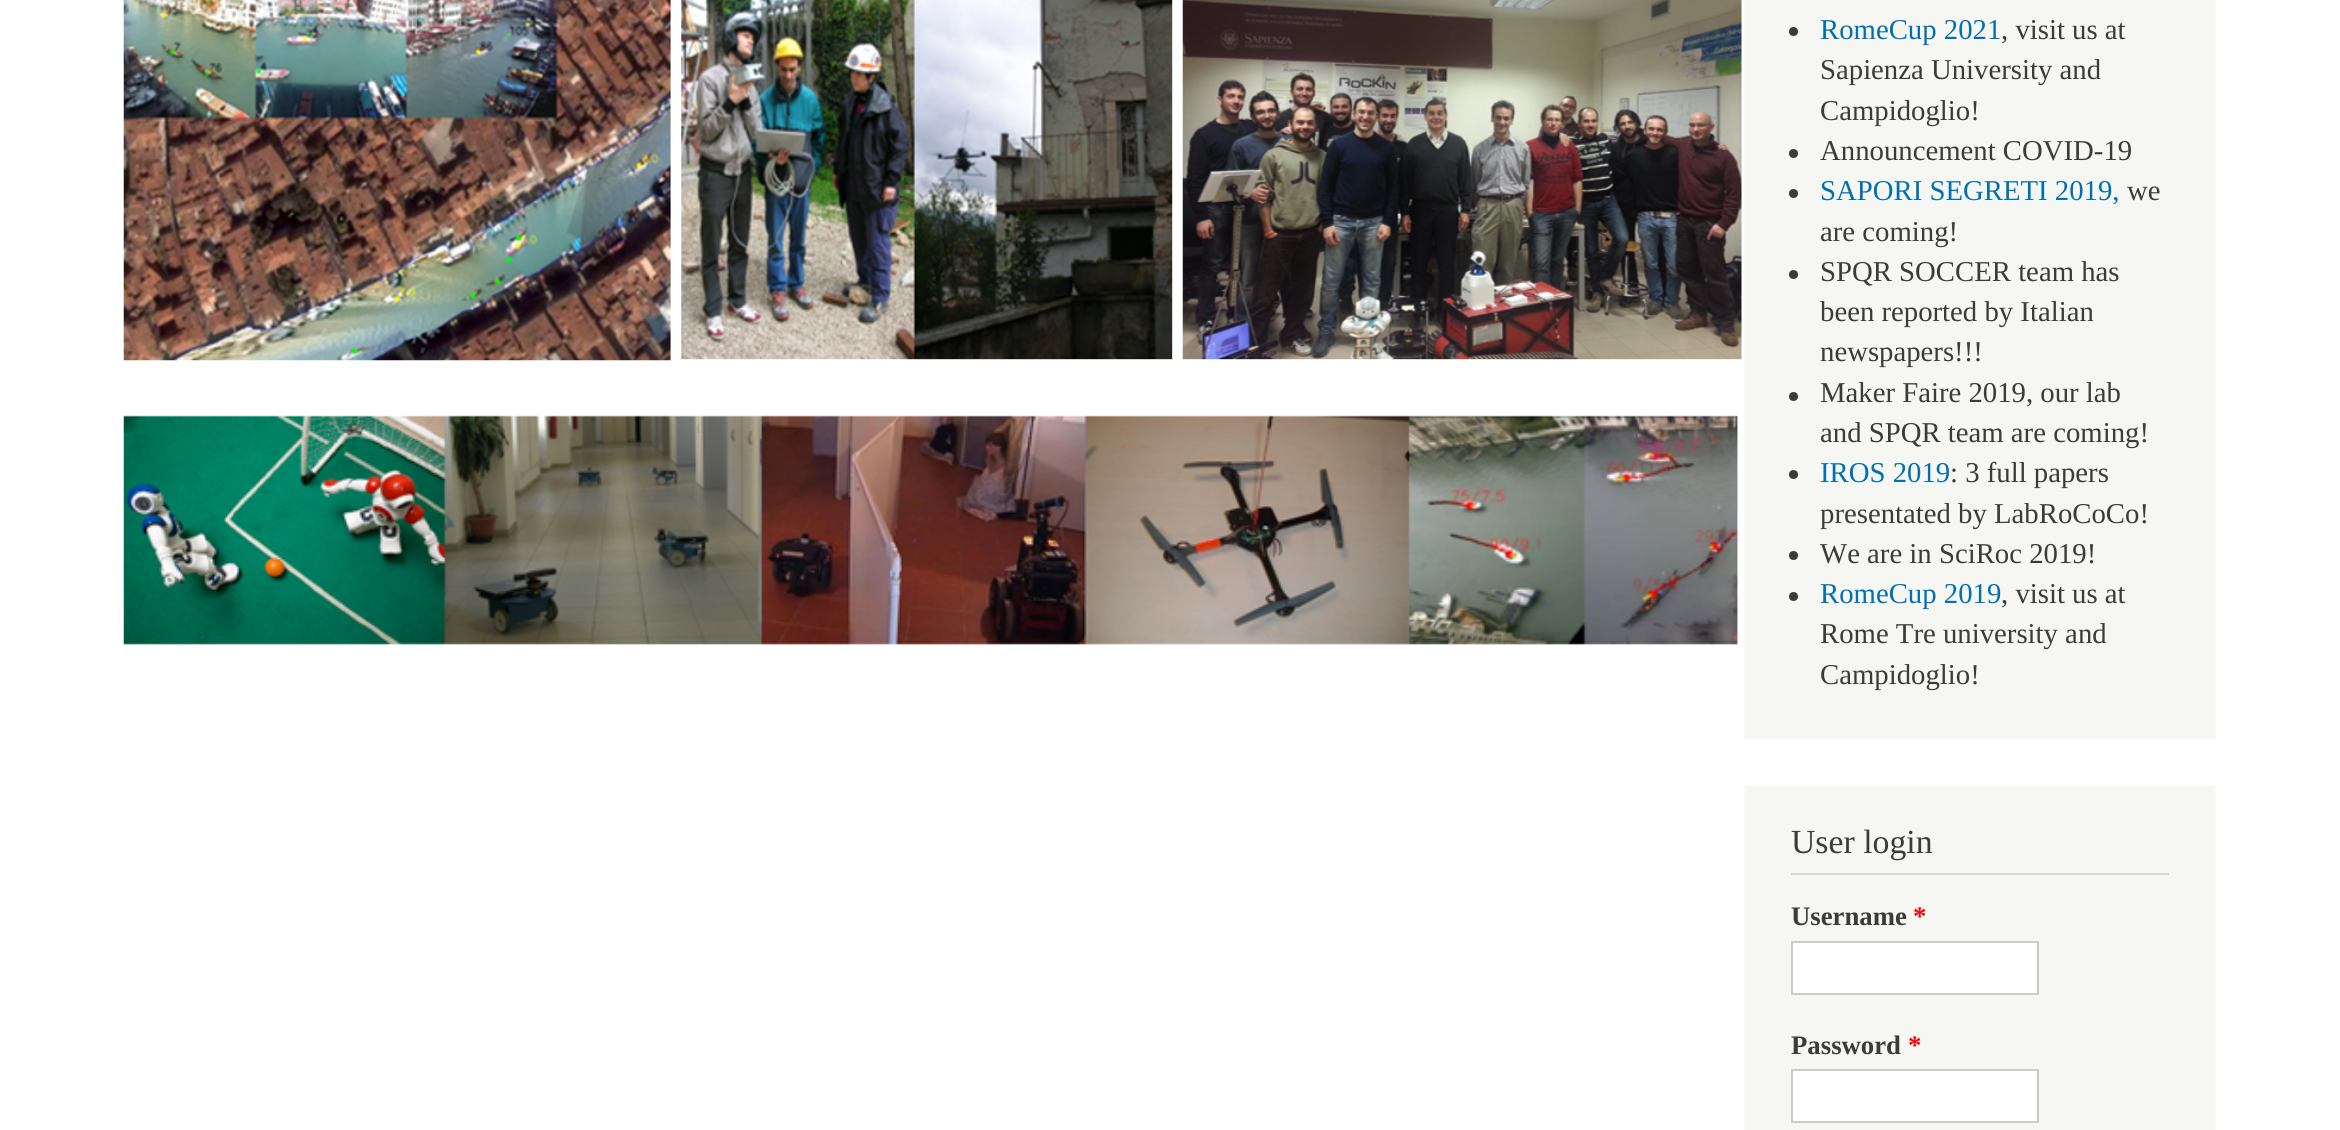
#include <cairo/cairo.h>
#include <math.h>
#include <stddef.h>


static void draw_image(cairo_t *cr, const char *path, double x, double y, double w, double h) {
  cairo_surface_t *image = cairo_image_surface_create_from_png(path);
  cairo_save(cr);
  cairo_set_source_surface(cr, image, x, y);
  cairo_rectangle(cr, x, y, w, h);
  cairo_fill(cr);
  cairo_restore(cr);
  cairo_surface_destroy(image);
}

static void draw(cairo_t *cr) {
  cairo_set_source_rgb(cr, 1, 1, 1);
  cairo_paint(cr);
  draw_image(cr, "images/1.png", 123, 0, 1619, 361);
  draw_image(cr, "images/2.png", 123, 415, 1615, 230);
  cairo_set_source_rgb(cr, 246 / 255.0, 246 / 255.0, 242 / 255.0);
  cairo_rectangle(cr, 1745, -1, 470, 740);
  cairo_fill_preserve(cr);
  cairo_set_source_rgb(cr, 249 / 255.0, 249 / 255.0, 249 / 255.0);
  cairo_stroke(cr);
  cairo_set_source_rgb(cr, 59 / 255.0, 59 / 255.0, 59 / 255.0);
  cairo_arc(cr, 1793.5, 31.5, 4.5, 0, 2 * M_PI);
  cairo_fill(cr);
  cairo_arc(cr, 1793.5, 153.5, 4.5, 0, 2 * M_PI);
  cairo_fill(cr);
  cairo_arc(cr, 1793.5, 193.5, 4.5, 0, 2 * M_PI);
  cairo_fill(cr);
  cairo_arc(cr, 1793.5, 274.5, 4.5, 0, 2 * M_PI);
  cairo_fill(cr);
  cairo_arc(cr, 1793.5, 396.5, 4.5, 0, 2 * M_PI);
  cairo_fill(cr);
  cairo_arc(cr, 1793.5, 474.5, 4.5, 0, 2 * M_PI);
  cairo_fill(cr);
  cairo_arc(cr, 1793.5, 555.5, 4.5, 0, 2 * M_PI);
  cairo_fill(cr);
  cairo_arc(cr, 1793.5, 596.5, 4.5, 0, 2 * M_PI);
  cairo_fill(cr);
  cairo_set_source_rgb(cr, 246 / 255.0, 246 / 255.0, 242 / 255.0);
  cairo_rectangle(cr, 1745, 786, 470, 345);
  cairo_fill_preserve(cr);
  cairo_set_source_rgb(cr, 249 / 255.0, 249 / 255.0, 249 / 255.0);
  cairo_stroke(cr);
  cairo_set_source_rgb(cr, 214 / 255.0, 214 / 255.0, 214 / 255.0);
  cairo_rectangle(cr, 1791, 873, 378, 2);
  cairo_fill(cr);
  cairo_set_source_rgb(cr, 1, 1, 1);
  cairo_rectangle(cr, 1792, 942, 246, 52);
  cairo_fill_preserve(cr);
  cairo_set_source_rgb(cr, 204 / 255.0, 204 / 255.0, 204 / 255.0);
  cairo_stroke(cr);
  cairo_set_source_rgb(cr, 1, 1, 1);
  cairo_rectangle(cr, 1792, 1070, 246, 52);
  cairo_fill_preserve(cr);
  cairo_set_source_rgb(cr, 204 / 255.0, 204 / 255.0, 204 / 255.0);
  cairo_stroke(cr);
  cairo_select_font_face(cr, "Liberation Serif", CAIRO_FONT_SLANT_NORMAL, CAIRO_FONT_WEIGHT_NORMAL);
  cairo_set_font_size(cr, 28.75);
  cairo_set_source_rgb(cr, 0, 112 / 255.0, 179 / 255.0);
  cairo_move_to(cr, 1820, 39);
  cairo_show_text(cr, "RomeCup 2021");
  cairo_set_source_rgb(cr, 59 / 255.0, 59 / 255.0, 59 / 255.0);
  cairo_move_to(cr, 2001, 39);
  cairo_show_text(cr, ", visit us at");
  cairo_move_to(cr, 1820, 79);
  cairo_show_text(cr, "Sapienza University and");
  cairo_move_to(cr, 1820, 120);
  cairo_show_text(cr, "Campidoglio!");
  cairo_move_to(cr, 1820, 160);
  cairo_show_text(cr, "Announcement COVID-19");
  cairo_set_source_rgb(cr, 0, 112 / 255.0, 179 / 255.0);
  cairo_move_to(cr, 1820, 200);
  cairo_show_text(cr, "SAPORI SEGRETI 2019,");
  cairo_set_source_rgb(cr, 59 / 255.0, 59 / 255.0, 59 / 255.0);
  cairo_move_to(cr, 2127, 200);
  cairo_show_text(cr, "we");
  cairo_move_to(cr, 1820, 241);
  cairo_show_text(cr, "are coming!");
  cairo_move_to(cr, 1820, 281);
  cairo_show_text(cr, "SPQR SOCCER team has");
  cairo_move_to(cr, 1820, 321);
  cairo_show_text(cr, "been reported by Italian");
  cairo_move_to(cr, 1820, 361);
  cairo_show_text(cr, "newspapers!!!");
  cairo_move_to(cr, 1820, 402);
  cairo_show_text(cr, "Maker Faire 2019, our lab");
  cairo_move_to(cr, 1820, 442);
  cairo_show_text(cr, "and SPQR team are coming!");
  cairo_set_source_rgb(cr, 0, 112 / 255.0, 179 / 255.0);
  cairo_move_to(cr, 1820, 482);
  cairo_show_text(cr, "IROS 2019");
  cairo_set_source_rgb(cr, 59 / 255.0, 59 / 255.0, 59 / 255.0);
  cairo_move_to(cr, 1950, 482);
  cairo_show_text(cr, ": 3 full papers");
  cairo_move_to(cr, 1820, 523);
  cairo_show_text(cr, "presentated by LabRoCoCo!");
  cairo_move_to(cr, 1820, 563);
  cairo_show_text(cr, "We are in SciRoc 2019!");
  cairo_set_source_rgb(cr, 0, 112 / 255.0, 179 / 255.0);
  cairo_move_to(cr, 1820, 603);
  cairo_show_text(cr, "RomeCup 2019");
  cairo_set_source_rgb(cr, 59 / 255.0, 59 / 255.0, 59 / 255.0);
  cairo_move_to(cr, 2001, 603);
  cairo_show_text(cr, ", visit us at");
  cairo_move_to(cr, 1820, 643);
  cairo_show_text(cr, "Rome Tre university and");
  cairo_move_to(cr, 1820, 684);
  cairo_show_text(cr, "Campidoglio!");
  cairo_set_font_size(cr, 33.75);
  cairo_move_to(cr, 1791, 853);
  cairo_show_text(cr, "User login");
  cairo_select_font_face(cr, "Liberation Serif", CAIRO_FONT_SLANT_NORMAL, CAIRO_FONT_WEIGHT_BOLD);
  cairo_set_font_size(cr, 26.75);
  cairo_move_to(cr, 1791, 925);
  cairo_show_text(cr, "Username");
  cairo_set_source_rgb(cr, 1, 0, 0);
  cairo_move_to(cr, 1913, 925);
  cairo_show_text(cr, "*");
  cairo_set_source_rgb(cr, 59 / 255.0, 59 / 255.0, 59 / 255.0);
  cairo_move_to(cr, 1791, 1054);
  cairo_show_text(cr, "Password");
  cairo_set_source_rgb(cr, 1, 0, 0);
  cairo_move_to(cr, 1908, 1054);
  cairo_show_text(cr, "*");
}

int main(void) {
  cairo_surface_t *surface = cairo_image_surface_create(CAIRO_FORMAT_RGB24, 2340, 1130);
  cairo_t *cr = cairo_create(surface);
  cairo_font_options_t *options = cairo_font_options_create();
  cairo_font_options_set_hint_metrics(options, CAIRO_HINT_METRICS_OFF);
  cairo_font_options_set_hint_style(options, CAIRO_HINT_STYLE_NONE);
  cairo_set_font_options(cr, options);
  cairo_set_miter_limit(cr, 4);
  draw(cr);
  cairo_surface_write_to_png(surface, "out.png");
  cairo_font_options_destroy(options);
  cairo_destroy(cr);
  cairo_surface_destroy(surface);
  return 0;
}
